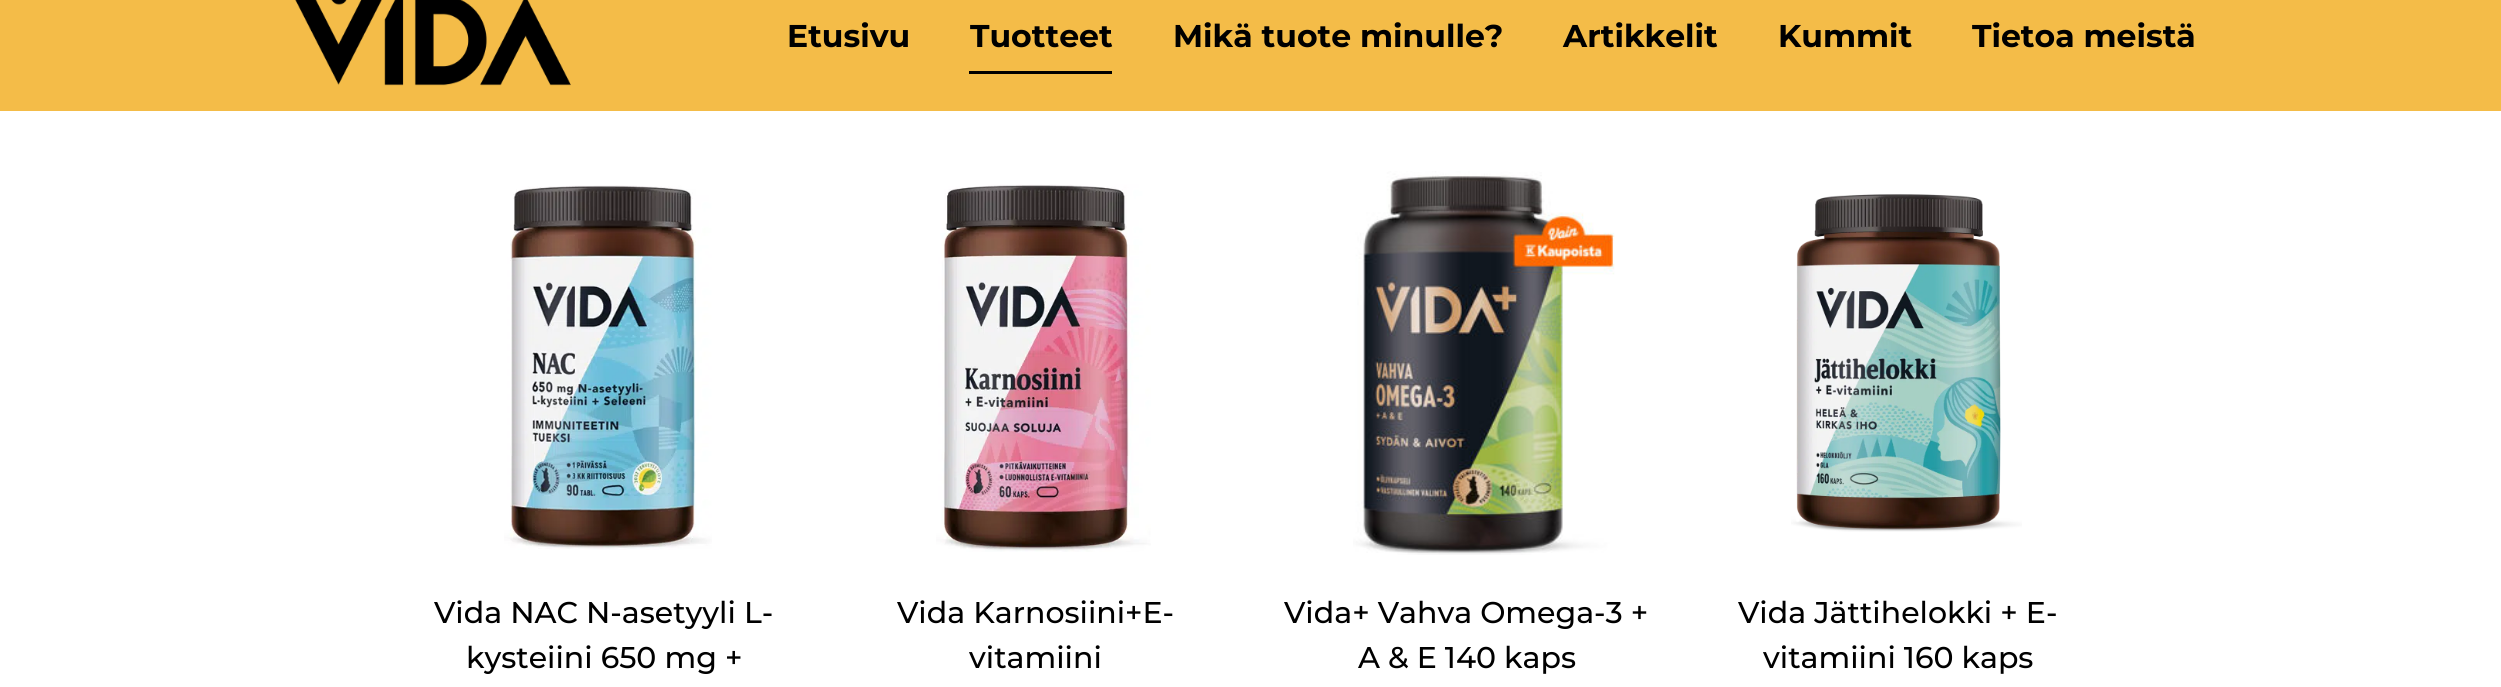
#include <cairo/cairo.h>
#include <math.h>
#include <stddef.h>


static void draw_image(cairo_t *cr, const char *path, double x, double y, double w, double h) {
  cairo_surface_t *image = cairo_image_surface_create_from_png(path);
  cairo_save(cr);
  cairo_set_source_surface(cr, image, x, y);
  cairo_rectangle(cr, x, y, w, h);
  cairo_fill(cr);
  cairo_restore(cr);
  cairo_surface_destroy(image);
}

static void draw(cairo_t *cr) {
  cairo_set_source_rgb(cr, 1, 1, 1);
  cairo_paint(cr);
  cairo_set_source_rgb(cr, 244 / 255.0, 188 / 255.0, 72 / 255.0);
  cairo_rectangle(cr, 0, 0, 2501, 111);
  cairo_fill(cr);
  draw_image(cr, "images/1.png", 295, 0, 276, 86);
  cairo_set_source_rgb(cr, 0, 0, 0);
  cairo_rectangle(cr, 969, 71, 143, 3);
  cairo_fill(cr);
  draw_image(cr, "images/2.png", 504, 185, 208, 365);
  draw_image(cr, "images/3.png", 936, 184, 215, 368);
  draw_image(cr, "images/4.png", 1353, 171, 262, 384);
  draw_image(cr, "images/5.png", 1791, 194, 231, 338);
  cairo_select_font_face(cr, "Montserrat", CAIRO_FONT_SLANT_NORMAL, CAIRO_FONT_WEIGHT_BOLD);
  cairo_set_font_size(cr, 31.5);
  cairo_move_to(cr, 787, 47);
  cairo_show_text(cr, "Etusivu");
  cairo_move_to(cr, 970, 47);
  cairo_show_text(cr, "Tuotteet");
  cairo_move_to(cr, 1173, 47);
  cairo_show_text(cr, "Mikä tuote minulle?");
  cairo_move_to(cr, 1563, 47);
  cairo_show_text(cr, "Artikkelit");
  cairo_move_to(cr, 1778, 47);
  cairo_show_text(cr, "Kummit");
  cairo_move_to(cr, 1972, 47);
  cairo_show_text(cr, "Tietoa meistä");
  cairo_select_font_face(cr, "Montserrat Medium", CAIRO_FONT_SLANT_NORMAL, CAIRO_FONT_WEIGHT_NORMAL);
  cairo_set_font_size(cr, 30);
  cairo_move_to(cr, 434, 623);
  cairo_show_text(cr, "Vida NAC N-asetyyli L-");
  cairo_move_to(cr, 466, 668);
  cairo_show_text(cr, "kysteiini 650 mg +");
  cairo_move_to(cr, 897, 623);
  cairo_show_text(cr, "Vida Karnosiini+E-");
  cairo_move_to(cr, 969, 668);
  cairo_show_text(cr, "vitamiini");
  cairo_move_to(cr, 1284, 623);
  cairo_show_text(cr, "Vida+ Vahva Omega-3 +");
  cairo_move_to(cr, 1358, 668);
  cairo_show_text(cr, "A & E 140 kaps");
  cairo_move_to(cr, 1738, 623);
  cairo_show_text(cr, "Vida Jättihelokki + E-");
  cairo_move_to(cr, 1763, 668);
  cairo_show_text(cr, "vitamiini 160 kaps");
}

int main(void) {
  cairo_surface_t *surface = cairo_image_surface_create(CAIRO_FORMAT_RGB24, 2501, 687);
  cairo_t *cr = cairo_create(surface);
  cairo_font_options_t *options = cairo_font_options_create();
  cairo_font_options_set_hint_metrics(options, CAIRO_HINT_METRICS_OFF);
  cairo_font_options_set_hint_style(options, CAIRO_HINT_STYLE_NONE);
  cairo_set_font_options(cr, options);
  cairo_set_miter_limit(cr, 4);
  draw(cr);
  cairo_surface_write_to_png(surface, "out.png");
  cairo_font_options_destroy(options);
  cairo_destroy(cr);
  cairo_surface_destroy(surface);
  return 0;
}
